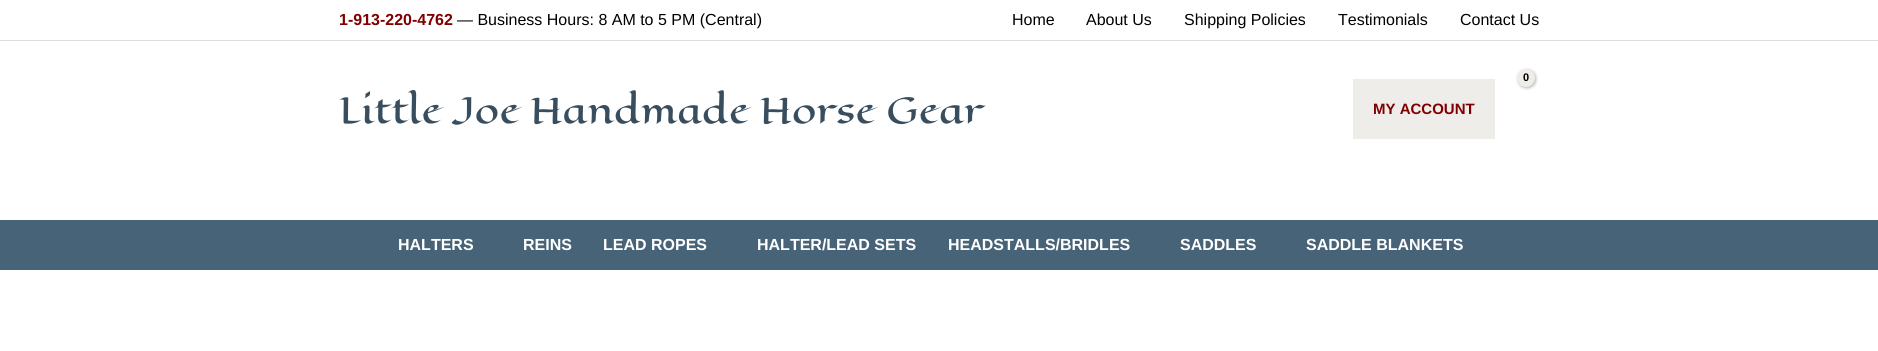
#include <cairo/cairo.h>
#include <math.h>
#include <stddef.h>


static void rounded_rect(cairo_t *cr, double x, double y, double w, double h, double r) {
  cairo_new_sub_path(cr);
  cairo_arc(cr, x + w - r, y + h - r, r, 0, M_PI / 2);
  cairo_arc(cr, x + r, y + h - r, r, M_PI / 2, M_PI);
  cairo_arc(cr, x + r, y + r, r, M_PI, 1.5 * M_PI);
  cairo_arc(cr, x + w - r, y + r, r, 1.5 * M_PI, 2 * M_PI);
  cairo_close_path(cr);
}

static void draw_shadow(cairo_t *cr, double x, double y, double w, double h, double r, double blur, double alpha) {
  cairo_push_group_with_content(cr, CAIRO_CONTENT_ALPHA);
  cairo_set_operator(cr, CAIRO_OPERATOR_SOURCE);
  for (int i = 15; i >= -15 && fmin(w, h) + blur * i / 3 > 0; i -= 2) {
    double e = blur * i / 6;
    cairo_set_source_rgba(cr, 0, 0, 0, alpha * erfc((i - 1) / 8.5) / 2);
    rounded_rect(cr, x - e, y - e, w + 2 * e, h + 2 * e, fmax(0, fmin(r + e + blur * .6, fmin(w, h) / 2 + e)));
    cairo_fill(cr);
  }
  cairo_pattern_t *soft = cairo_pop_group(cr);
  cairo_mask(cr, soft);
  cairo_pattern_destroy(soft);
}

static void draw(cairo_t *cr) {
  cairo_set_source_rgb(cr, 1, 1, 1);
  cairo_paint(cr);
  cairo_set_source_rgb(cr, 221 / 255.0, 221 / 255.0, 221 / 255.0);
  cairo_rectangle(cr, 0, 40, 1878, 1);
  cairo_fill(cr);
  cairo_set_source_rgb(cr, 0, 0, 0);
  draw_shadow(cr, 1518, 70, 18, 18, 9, 1.5, 0.3);
  cairo_set_source_rgb(cr, 239 / 255.0, 237 / 255.0, 233 / 255.0);
  cairo_arc(cr, 1526, 78, 9, 0, 2 * M_PI);
  cairo_fill(cr);
  cairo_rectangle(cr, 1353, 79, 142, 60);
  cairo_fill(cr);
  cairo_set_source_rgb(cr, 71 / 255.0, 99 / 255.0, 120 / 255.0);
  cairo_rectangle(cr, 0, 220, 1878, 50);
  cairo_fill(cr);
  cairo_select_font_face(cr, "Liberation Sans", CAIRO_FONT_SLANT_NORMAL, CAIRO_FONT_WEIGHT_BOLD);
  cairo_set_font_size(cr, 16);
  cairo_set_source_rgb(cr, 128 / 255.0, 0, 0);
  cairo_move_to(cr, 339, 25);
  cairo_show_text(cr, "1-913-220-4762");
  cairo_select_font_face(cr, "Liberation Sans", CAIRO_FONT_SLANT_NORMAL, CAIRO_FONT_WEIGHT_NORMAL);
  cairo_set_source_rgb(cr, 0, 0, 0);
  cairo_move_to(cr, 457, 25);
  cairo_show_text(cr, "— Business Hours: 8 AM to 5 PM (Central)");
  cairo_move_to(cr, 1012, 25);
  cairo_show_text(cr, "Home");
  cairo_move_to(cr, 1086, 25);
  cairo_show_text(cr, "About Us");
  cairo_move_to(cr, 1184, 25);
  cairo_show_text(cr, "Shipping Policies");
  cairo_move_to(cr, 1338, 25);
  cairo_show_text(cr, "Testimonials");
  cairo_move_to(cr, 1460, 25);
  cairo_show_text(cr, "Contact Us");
  cairo_select_font_face(cr, "Liberation Sans", CAIRO_FONT_SLANT_NORMAL, CAIRO_FONT_WEIGHT_BOLD);
  cairo_set_font_size(cr, 11);
  cairo_move_to(cr, 1523, 81);
  cairo_show_text(cr, "0");
  cairo_select_font_face(cr, "Eagle Lake", CAIRO_FONT_SLANT_NORMAL, CAIRO_FONT_WEIGHT_NORMAL);
  cairo_set_font_size(cr, 35);
  cairo_set_source_rgb(cr, 56 / 255.0, 78 / 255.0, 94 / 255.0);
  cairo_move_to(cr, 339, 123);
  cairo_show_text(cr, "Little Joe Handmade Horse Gear");
  cairo_select_font_face(cr, "Liberation Sans", CAIRO_FONT_SLANT_NORMAL, CAIRO_FONT_WEIGHT_BOLD);
  cairo_set_font_size(cr, 15);
  cairo_set_source_rgb(cr, 128 / 255.0, 0, 0);
  cairo_move_to(cr, 1373, 114);
  cairo_show_text(cr, "MY ACCOUNT");
  cairo_set_font_size(cr, 16);
  cairo_set_source_rgb(cr, 1, 1, 1);
  cairo_move_to(cr, 398, 250);
  cairo_show_text(cr, "HALTERS");
  cairo_move_to(cr, 523, 250);
  cairo_show_text(cr, "REINS");
  cairo_move_to(cr, 603, 250);
  cairo_show_text(cr, "LEAD ROPES");
  cairo_move_to(cr, 757, 250);
  cairo_show_text(cr, "HALTER/LEAD SETS");
  cairo_move_to(cr, 948, 250);
  cairo_show_text(cr, "HEADSTALLS/BRIDLES");
  cairo_move_to(cr, 1180, 250);
  cairo_show_text(cr, "SADDLES");
  cairo_move_to(cr, 1306, 250);
  cairo_show_text(cr, "SADDLE BLANKETS");
}

int main(void) {
  cairo_surface_t *surface = cairo_image_surface_create(CAIRO_FORMAT_RGB24, 1878, 351);
  cairo_t *cr = cairo_create(surface);
  cairo_font_options_t *options = cairo_font_options_create();
  cairo_font_options_set_hint_metrics(options, CAIRO_HINT_METRICS_OFF);
  cairo_font_options_set_hint_style(options, CAIRO_HINT_STYLE_NONE);
  cairo_set_font_options(cr, options);
  cairo_set_miter_limit(cr, 4);
  draw(cr);
  cairo_surface_write_to_png(surface, "out.png");
  cairo_font_options_destroy(options);
  cairo_destroy(cr);
  cairo_surface_destroy(surface);
  return 0;
}
